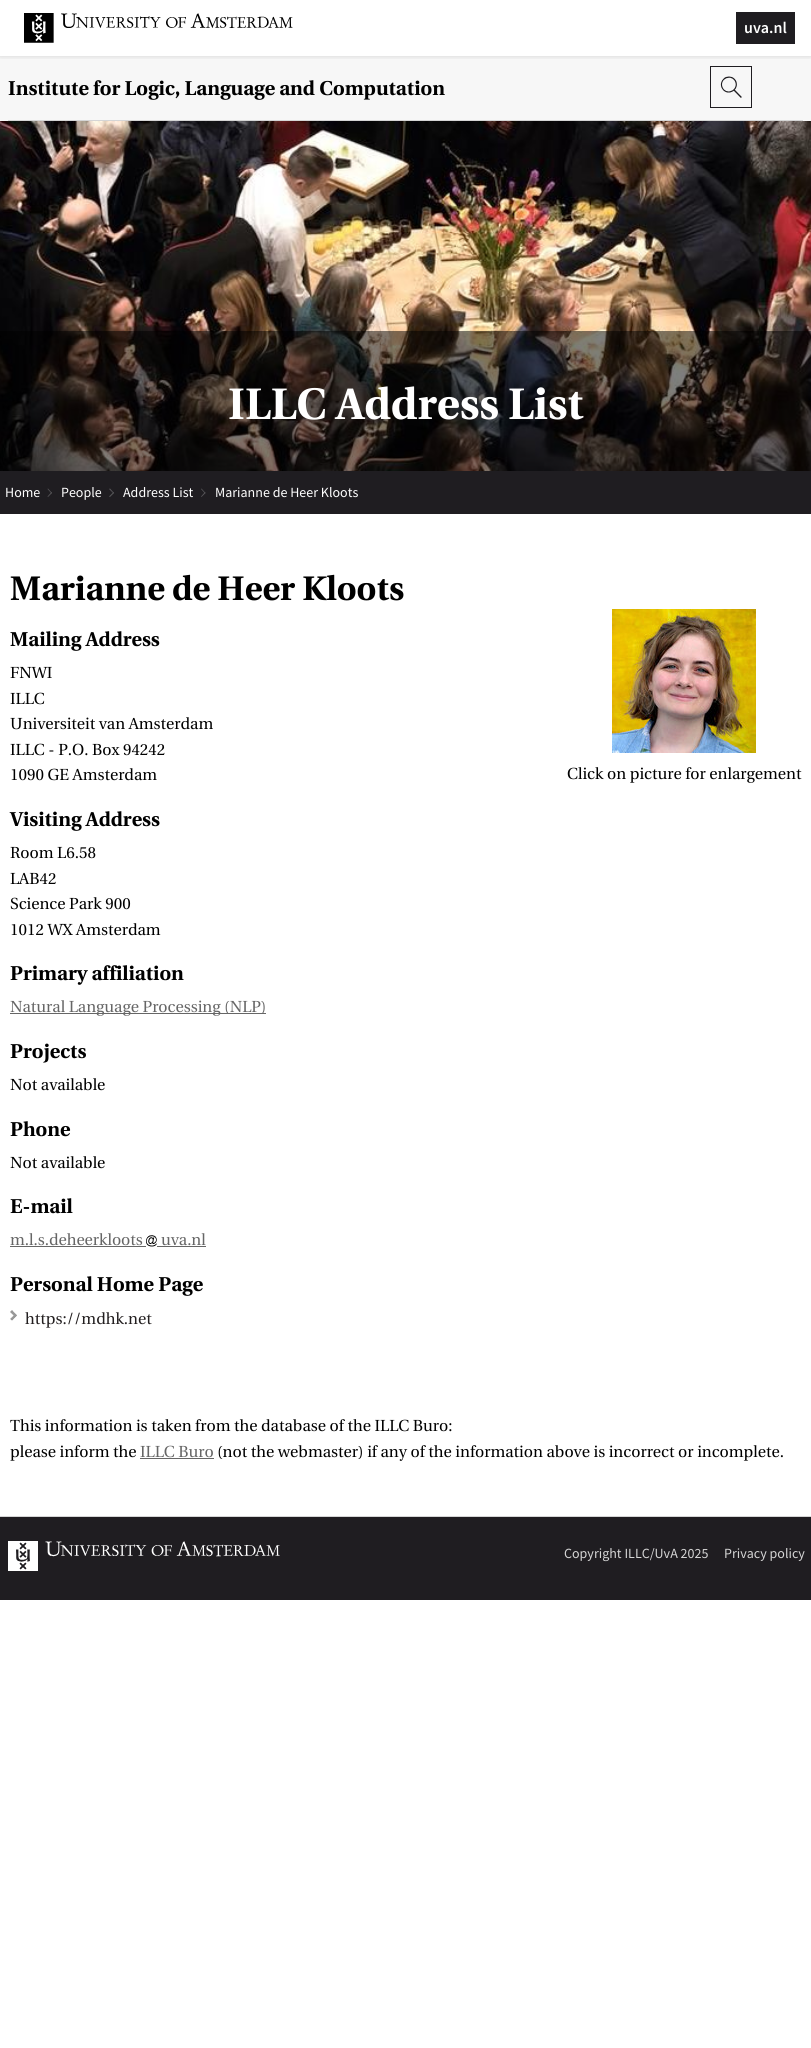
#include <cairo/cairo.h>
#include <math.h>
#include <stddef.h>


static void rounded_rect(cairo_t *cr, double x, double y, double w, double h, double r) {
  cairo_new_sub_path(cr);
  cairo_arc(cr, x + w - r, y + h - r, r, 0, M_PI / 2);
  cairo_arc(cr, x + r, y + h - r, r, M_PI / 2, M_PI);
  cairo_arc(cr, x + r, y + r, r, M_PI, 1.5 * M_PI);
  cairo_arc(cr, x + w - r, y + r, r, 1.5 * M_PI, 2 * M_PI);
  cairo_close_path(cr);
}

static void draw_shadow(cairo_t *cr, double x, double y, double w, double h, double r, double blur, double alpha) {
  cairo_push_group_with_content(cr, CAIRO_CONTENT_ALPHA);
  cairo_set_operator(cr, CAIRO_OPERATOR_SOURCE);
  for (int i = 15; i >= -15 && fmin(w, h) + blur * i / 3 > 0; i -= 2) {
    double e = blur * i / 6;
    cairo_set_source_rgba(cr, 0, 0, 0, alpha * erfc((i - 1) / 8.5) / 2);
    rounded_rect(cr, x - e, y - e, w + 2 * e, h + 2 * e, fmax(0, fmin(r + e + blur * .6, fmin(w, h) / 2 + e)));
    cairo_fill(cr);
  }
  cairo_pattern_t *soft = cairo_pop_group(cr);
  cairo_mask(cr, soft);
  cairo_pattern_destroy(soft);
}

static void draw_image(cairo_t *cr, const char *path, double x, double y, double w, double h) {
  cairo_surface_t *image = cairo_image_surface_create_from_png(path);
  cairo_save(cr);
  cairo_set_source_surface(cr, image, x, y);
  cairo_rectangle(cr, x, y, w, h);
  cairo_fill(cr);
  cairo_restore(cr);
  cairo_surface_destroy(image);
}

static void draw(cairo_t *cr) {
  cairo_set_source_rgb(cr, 1, 1, 1);
  cairo_paint(cr);
  cairo_set_source_rgb(cr, 247 / 255.0, 247 / 255.0, 247 / 255.0);
  cairo_rectangle(cr, 0, 56, 811, 65);
  cairo_fill(cr);
  cairo_save(cr);
  cairo_rectangle(cr, 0, 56, 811, 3);
  cairo_clip(cr);
  cairo_set_source_rgb(cr, 0, 0, 0);
  draw_shadow(cr, 0, 0, 811, 56, 0, 3, 0.15);
  cairo_restore(cr);
  draw_image(cr, "images/1.png", 24, 13, 269, 30);
  cairo_set_source_rgb(cr, 31 / 255.0, 29 / 255.0, 33 / 255.0);
  cairo_rectangle(cr, 736, 12, 59, 32);
  cairo_fill(cr);
  cairo_set_source_rgb(cr, 213 / 255.0, 213 / 255.0, 213 / 255.0);
  cairo_rectangle(cr, 8, 120, 795, 1);
  cairo_fill(cr);
  cairo_rectangle(cr, 710.5, 66.5, 41, 41);
  cairo_set_source_rgb(cr, 31 / 255.0, 29 / 255.0, 33 / 255.0);
  cairo_set_line_width(cr, 1);
  cairo_stroke(cr);
  draw_image(cr, "images/2.png", 720, 76, 22, 22);
  draw_image(cr, "images/3.png", 0, 121, 811, 350);
  cairo_set_source_rgba(cr, 0, 0, 0, 0.5);
  cairo_rectangle(cr, 0, 331, 811, 140);
  cairo_fill(cr);
  cairo_set_source_rgb(cr, 31 / 255.0, 29 / 255.0, 33 / 255.0);
  cairo_rectangle(cr, 0, 471, 811, 43);
  cairo_fill(cr);
  cairo_set_source_rgb(cr, 87 / 255.0, 86 / 255.0, 89 / 255.0);
  cairo_new_path(cr);
  cairo_move_to(cr, 47.5, 489);
  cairo_line_to(cr, 48, 488.5);
  cairo_line_to(cr, 52, 493);
  cairo_line_to(cr, 51.5, 493.5);
  cairo_close_path(cr);
  cairo_fill(cr);
  cairo_new_path(cr);
  cairo_move_to(cr, 47.5, 496.5);
  cairo_line_to(cr, 51.5, 492);
  cairo_line_to(cr, 52, 493);
  cairo_line_to(cr, 48, 497);
  cairo_close_path(cr);
  cairo_fill(cr);
  cairo_new_path(cr);
  cairo_move_to(cr, 109, 489);
  cairo_line_to(cr, 110, 488.5);
  cairo_line_to(cr, 114, 493);
  cairo_line_to(cr, 113.5, 493.5);
  cairo_close_path(cr);
  cairo_fill(cr);
  cairo_new_path(cr);
  cairo_move_to(cr, 109, 496.5);
  cairo_line_to(cr, 113.5, 492);
  cairo_line_to(cr, 114, 493);
  cairo_line_to(cr, 110, 497);
  cairo_close_path(cr);
  cairo_fill(cr);
  cairo_new_path(cr);
  cairo_move_to(cr, 201, 489);
  cairo_line_to(cr, 201.5, 488.5);
  cairo_line_to(cr, 205.5, 493);
  cairo_line_to(cr, 205, 493.5);
  cairo_close_path(cr);
  cairo_fill(cr);
  cairo_new_path(cr);
  cairo_move_to(cr, 201, 496.5);
  cairo_line_to(cr, 205, 492);
  cairo_line_to(cr, 205.5, 493);
  cairo_line_to(cr, 201.5, 497);
  cairo_close_path(cr);
  cairo_fill(cr);
  draw_image(cr, "images/4.png", 612, 609, 144, 144);
  cairo_set_source_rgb(cr, 102 / 255.0, 102 / 255.0, 102 / 255.0);
  cairo_rectangle(cr, 10, 1013, 256, 1);
  cairo_fill(cr);
  cairo_rectangle(cr, 10, 1246, 136, 1);
  cairo_fill(cr);
  draw_image(cr, "images/5.png", 146, 1235, 11, 12);
  cairo_rectangle(cr, 157, 1246, 49, 1);
  cairo_fill(cr);
  draw_image(cr, "images/6.png", 10, 1310, 7, 11);
  cairo_rectangle(cr, 140, 1458, 74, 1);
  cairo_fill(cr);
  cairo_set_source_rgb(cr, 31 / 255.0, 29 / 255.0, 33 / 255.0);
  cairo_rectangle(cr, 0, 1517, 811, 83);
  cairo_fill(cr);
  cairo_set_source_rgb(cr, 213 / 255.0, 213 / 255.0, 213 / 255.0);
  cairo_rectangle(cr, 0, 1516, 811, 1);
  cairo_fill(cr);
  draw_image(cr, "images/7.png", 8, 1541, 272, 30);
  cairo_select_font_face(cr, "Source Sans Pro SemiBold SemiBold", CAIRO_FONT_SLANT_NORMAL, CAIRO_FONT_WEIGHT_NORMAL);
  cairo_set_font_size(cr, 16);
  cairo_set_source_rgb(cr, 1, 1, 1);
  cairo_move_to(cr, 744, 33);
  cairo_show_text(cr, "uva.nl");
  cairo_select_font_face(cr, "Utopia", CAIRO_FONT_SLANT_NORMAL, CAIRO_FONT_WEIGHT_BOLD);
  cairo_set_font_size(cr, 20);
  cairo_set_source_rgb(cr, 0, 0, 0);
  cairo_move_to(cr, 8, 95);
  cairo_show_text(cr, "Institute for Logic, Language and Computation");
  cairo_set_font_size(cr, 44);
  cairo_set_source_rgb(cr, 1, 1, 1);
  cairo_move_to(cr, 228, 419);
  cairo_show_text(cr, "ILLC Address List");
  cairo_select_font_face(cr, "Source Sans Pro", CAIRO_FONT_SLANT_NORMAL, CAIRO_FONT_WEIGHT_NORMAL);
  cairo_set_font_size(cr, 14);
  cairo_move_to(cr, 5, 497);
  cairo_show_text(cr, "Home");
  cairo_move_to(cr, 61, 497);
  cairo_show_text(cr, "People");
  cairo_move_to(cr, 123, 497);
  cairo_show_text(cr, "Address List");
  cairo_move_to(cr, 215, 497);
  cairo_show_text(cr, "Marianne de Heer Kloots");
  cairo_select_font_face(cr, "Utopia", CAIRO_FONT_SLANT_NORMAL, CAIRO_FONT_WEIGHT_BOLD);
  cairo_set_font_size(cr, 34);
  cairo_set_source_rgb(cr, 0, 0, 0);
  cairo_move_to(cr, 10, 600);
  cairo_show_text(cr, "Marianne de Heer Kloots");
  cairo_set_font_size(cr, 20);
  cairo_move_to(cr, 10, 646);
  cairo_show_text(cr, "Mailing Address");
  cairo_select_font_face(cr, "Utopia", CAIRO_FONT_SLANT_NORMAL, CAIRO_FONT_WEIGHT_NORMAL);
  cairo_set_font_size(cr, 16);
  cairo_move_to(cr, 10, 678);
  cairo_show_text(cr, "FNWI");
  cairo_move_to(cr, 10, 704);
  cairo_show_text(cr, "ILLC");
  cairo_move_to(cr, 10, 729);
  cairo_show_text(cr, "Universiteit van Amsterdam");
  cairo_move_to(cr, 10, 755);
  cairo_show_text(cr, "ILLC - P.O. Box 94242");
  cairo_move_to(cr, 10, 780);
  cairo_show_text(cr, "1090 GE Amsterdam");
  cairo_move_to(cr, 567, 779);
  cairo_show_text(cr, "Click on picture for enlargement");
  cairo_select_font_face(cr, "Utopia", CAIRO_FONT_SLANT_NORMAL, CAIRO_FONT_WEIGHT_BOLD);
  cairo_set_font_size(cr, 20);
  cairo_move_to(cr, 10, 826);
  cairo_show_text(cr, "Visiting Address");
  cairo_select_font_face(cr, "Utopia", CAIRO_FONT_SLANT_NORMAL, CAIRO_FONT_WEIGHT_NORMAL);
  cairo_set_font_size(cr, 16);
  cairo_move_to(cr, 10, 858);
  cairo_show_text(cr, "Room L6.58");
  cairo_move_to(cr, 10, 884);
  cairo_show_text(cr, "LAB42");
  cairo_move_to(cr, 10, 909);
  cairo_show_text(cr, "Science Park 900");
  cairo_move_to(cr, 10, 935);
  cairo_show_text(cr, "1012 WX Amsterdam");
  cairo_select_font_face(cr, "Utopia", CAIRO_FONT_SLANT_NORMAL, CAIRO_FONT_WEIGHT_BOLD);
  cairo_set_font_size(cr, 20);
  cairo_move_to(cr, 10, 980);
  cairo_show_text(cr, "Primary affiliation");
  cairo_select_font_face(cr, "Utopia", CAIRO_FONT_SLANT_NORMAL, CAIRO_FONT_WEIGHT_NORMAL);
  cairo_set_font_size(cr, 16);
  cairo_set_source_rgb(cr, 102 / 255.0, 102 / 255.0, 102 / 255.0);
  cairo_move_to(cr, 10, 1012);
  cairo_show_text(cr, "Natural Language Processing (NLP)");
  cairo_select_font_face(cr, "Utopia", CAIRO_FONT_SLANT_NORMAL, CAIRO_FONT_WEIGHT_BOLD);
  cairo_set_font_size(cr, 20);
  cairo_set_source_rgb(cr, 0, 0, 0);
  cairo_move_to(cr, 10, 1058);
  cairo_show_text(cr, "Projects");
  cairo_select_font_face(cr, "Utopia", CAIRO_FONT_SLANT_NORMAL, CAIRO_FONT_WEIGHT_NORMAL);
  cairo_set_font_size(cr, 16);
  cairo_move_to(cr, 10, 1090);
  cairo_show_text(cr, "Not available");
  cairo_select_font_face(cr, "Utopia", CAIRO_FONT_SLANT_NORMAL, CAIRO_FONT_WEIGHT_BOLD);
  cairo_set_font_size(cr, 20);
  cairo_move_to(cr, 10, 1136);
  cairo_show_text(cr, "Phone");
  cairo_select_font_face(cr, "Utopia", CAIRO_FONT_SLANT_NORMAL, CAIRO_FONT_WEIGHT_NORMAL);
  cairo_set_font_size(cr, 16);
  cairo_move_to(cr, 10, 1168);
  cairo_show_text(cr, "Not available");
  cairo_select_font_face(cr, "Utopia", CAIRO_FONT_SLANT_NORMAL, CAIRO_FONT_WEIGHT_BOLD);
  cairo_set_font_size(cr, 20);
  cairo_move_to(cr, 10, 1213);
  cairo_show_text(cr, "E-mail");
  cairo_select_font_face(cr, "Utopia", CAIRO_FONT_SLANT_NORMAL, CAIRO_FONT_WEIGHT_NORMAL);
  cairo_set_font_size(cr, 16);
  cairo_set_source_rgb(cr, 102 / 255.0, 102 / 255.0, 102 / 255.0);
  cairo_move_to(cr, 10, 1245);
  cairo_show_text(cr, "m.l.s.deheerkloots");
  cairo_move_to(cr, 161, 1245);
  cairo_show_text(cr, "uva.nl");
  cairo_select_font_face(cr, "Utopia", CAIRO_FONT_SLANT_NORMAL, CAIRO_FONT_WEIGHT_BOLD);
  cairo_set_font_size(cr, 20);
  cairo_set_source_rgb(cr, 0, 0, 0);
  cairo_move_to(cr, 10, 1291);
  cairo_show_text(cr, "Personal Home Page");
  cairo_select_font_face(cr, "Utopia", CAIRO_FONT_SLANT_NORMAL, CAIRO_FONT_WEIGHT_NORMAL);
  cairo_set_font_size(cr, 16);
  cairo_set_source_rgb(cr, 35 / 255.0, 31 / 255.0, 32 / 255.0);
  cairo_move_to(cr, 25, 1324);
  cairo_show_text(cr, "https://mdhk.net");
  cairo_set_source_rgb(cr, 0, 0, 0);
  cairo_move_to(cr, 10, 1431);
  cairo_show_text(cr, "This information is taken from the database of the ILLC Buro:");
  cairo_move_to(cr, 10, 1457);
  cairo_show_text(cr, "please inform the");
  cairo_set_source_rgb(cr, 102 / 255.0, 102 / 255.0, 102 / 255.0);
  cairo_move_to(cr, 140, 1457);
  cairo_show_text(cr, "ILLC Buro");
  cairo_set_source_rgb(cr, 0, 0, 0);
  cairo_move_to(cr, 217, 1457);
  cairo_show_text(cr, "(not the webmaster) if any of the information above is incorrect or incomplete.");
  cairo_select_font_face(cr, "Source Sans Pro", CAIRO_FONT_SLANT_NORMAL, CAIRO_FONT_WEIGHT_NORMAL);
  cairo_set_font_size(cr, 14);
  cairo_set_source_rgb(cr, 213 / 255.0, 213 / 255.0, 213 / 255.0);
  cairo_move_to(cr, 564, 1558);
  cairo_show_text(cr, "Copyright ILLC/UvA 2025");
  cairo_move_to(cr, 724, 1558);
  cairo_show_text(cr, "Privacy policy");
}

int main(void) {
  cairo_surface_t *surface = cairo_image_surface_create(CAIRO_FORMAT_RGB24, 811, 2048);
  cairo_t *cr = cairo_create(surface);
  cairo_font_options_t *options = cairo_font_options_create();
  cairo_font_options_set_hint_metrics(options, CAIRO_HINT_METRICS_OFF);
  cairo_font_options_set_hint_style(options, CAIRO_HINT_STYLE_NONE);
  cairo_set_font_options(cr, options);
  cairo_set_miter_limit(cr, 4);
  draw(cr);
  cairo_surface_write_to_png(surface, "out.png");
  cairo_font_options_destroy(options);
  cairo_destroy(cr);
  cairo_surface_destroy(surface);
  return 0;
}
